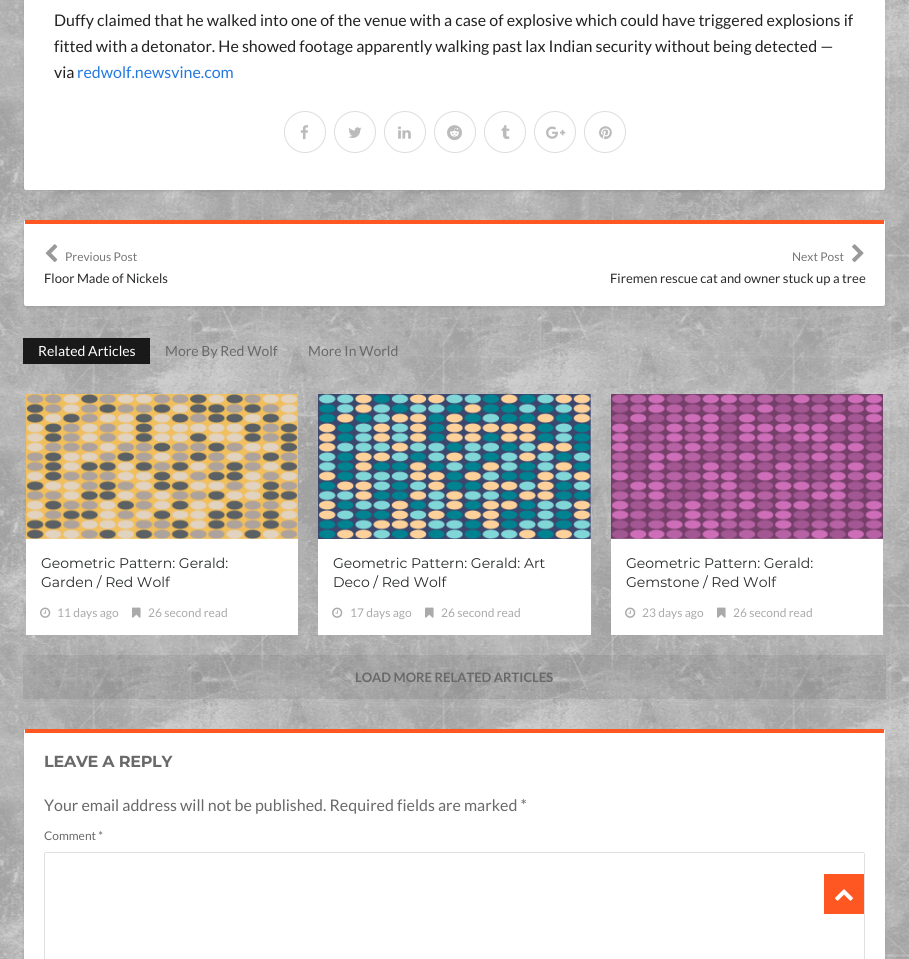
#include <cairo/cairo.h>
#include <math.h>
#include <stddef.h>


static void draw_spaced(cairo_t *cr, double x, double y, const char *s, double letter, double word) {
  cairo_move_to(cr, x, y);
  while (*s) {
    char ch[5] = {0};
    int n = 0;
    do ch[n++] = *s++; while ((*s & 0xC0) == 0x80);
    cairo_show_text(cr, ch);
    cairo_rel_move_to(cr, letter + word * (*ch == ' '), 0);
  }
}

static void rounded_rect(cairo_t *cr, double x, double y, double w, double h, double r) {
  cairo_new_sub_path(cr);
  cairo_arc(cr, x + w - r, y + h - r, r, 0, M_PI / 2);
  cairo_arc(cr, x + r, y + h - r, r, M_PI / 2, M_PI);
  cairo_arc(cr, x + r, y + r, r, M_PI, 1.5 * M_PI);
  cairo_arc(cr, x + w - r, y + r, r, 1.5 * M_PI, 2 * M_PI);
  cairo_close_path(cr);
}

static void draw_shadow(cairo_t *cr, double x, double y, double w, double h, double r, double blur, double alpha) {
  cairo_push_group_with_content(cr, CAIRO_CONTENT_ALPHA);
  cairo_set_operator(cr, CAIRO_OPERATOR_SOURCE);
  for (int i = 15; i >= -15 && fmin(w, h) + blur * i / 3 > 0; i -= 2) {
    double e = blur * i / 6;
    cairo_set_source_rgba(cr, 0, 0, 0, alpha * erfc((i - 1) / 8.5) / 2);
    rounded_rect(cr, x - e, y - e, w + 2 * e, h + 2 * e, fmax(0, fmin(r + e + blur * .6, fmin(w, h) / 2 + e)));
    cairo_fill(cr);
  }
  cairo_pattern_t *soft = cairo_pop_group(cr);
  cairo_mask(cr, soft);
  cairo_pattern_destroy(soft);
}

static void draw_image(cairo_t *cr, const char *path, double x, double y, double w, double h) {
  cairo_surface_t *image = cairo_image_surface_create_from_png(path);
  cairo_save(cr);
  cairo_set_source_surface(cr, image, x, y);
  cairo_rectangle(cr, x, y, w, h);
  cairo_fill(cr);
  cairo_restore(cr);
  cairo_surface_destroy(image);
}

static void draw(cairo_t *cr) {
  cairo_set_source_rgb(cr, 1, 1, 1);
  cairo_paint(cr);
  draw_image(cr, "images/1.png", 0, 0, 909, 959);
  cairo_set_source_rgb(cr, 0, 0, 0);
  draw_shadow(cr, 24, -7, 861, 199, 2, 1.5, 0.09);
  cairo_set_source_rgb(cr, 1, 1, 1);
  rounded_rect(cr, 24, -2, 861, 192, 2);
  cairo_fill(cr);
  cairo_arc(cr, 305, 132, 20.5, 0, 2 * M_PI);
  cairo_set_source_rgb(cr, 221 / 255.0, 221 / 255.0, 221 / 255.0);
  cairo_set_line_width(cr, 1);
  cairo_stroke(cr);
  draw_image(cr, "images/2.png", 300, 125, 8, 15);
  cairo_arc(cr, 355, 132, 20.5, 0, 2 * M_PI);
  cairo_stroke(cr);
  draw_image(cr, "images/3.png", 348, 127, 14, 11);
  cairo_arc(cr, 405, 132, 20.5, 0, 2 * M_PI);
  cairo_stroke(cr);
  draw_image(cr, "images/4.png", 398, 126, 13, 13);
  cairo_arc(cr, 455, 132, 20.5, 0, 2 * M_PI);
  cairo_stroke(cr);
  draw_image(cr, "images/5.png", 447, 125, 15, 16);
  cairo_arc(cr, 505, 132, 20.5, 0, 2 * M_PI);
  cairo_stroke(cr);
  draw_image(cr, "images/6.png", 501, 125, 9, 14);
  cairo_arc(cr, 555, 132, 20.5, 0, 2 * M_PI);
  cairo_stroke(cr);
  draw_image(cr, "images/7.png", 546, 126, 20, 13);
  cairo_arc(cr, 605, 132, 20.5, 0, 2 * M_PI);
  cairo_stroke(cr);
  draw_image(cr, "images/8.png", 599, 126, 13, 13);
  cairo_set_source_rgb(cr, 0, 0, 0);
  draw_shadow(cr, 24, 222, 861, 86, 2, 1.5, 0.09);
  cairo_set_source_rgb(cr, 1, 1, 1);
  rounded_rect(cr, 24, 220, 861, 86, 2);
  cairo_fill(cr);
  cairo_set_source_rgb(cr, 1, 87 / 255.0, 34 / 255.0);
  cairo_rectangle(cr, 25, 220, 859, 4);
  cairo_fill(cr);
  draw_image(cr, "images/9.png", 45, 244, 13, 19);
  draw_image(cr, "images/10.png", 852, 244, 12, 19);
  cairo_set_source_rgb(cr, 25 / 255.0, 25 / 255.0, 25 / 255.0);
  cairo_rectangle(cr, 23, 338, 127, 26);
  cairo_fill(cr);
  cairo_set_source_rgb(cr, 1, 1, 1);
  cairo_rectangle(cr, 26, 538, 272, 97);
  cairo_fill(cr);
  draw_image(cr, "images/11.png", 26, 394, 272, 145);
  draw_image(cr, "images/12.png", 40, 607, 11, 11);
  draw_image(cr, "images/13.png", 132, 607, 9, 11);
  cairo_rectangle(cr, 318, 394, 273, 241);
  cairo_fill(cr);
  draw_image(cr, "images/14.png", 318, 394, 273, 145);
  draw_image(cr, "images/12.png", 332, 607, 11, 11);
  draw_image(cr, "images/13.png", 425, 607, 9, 11);
  cairo_rectangle(cr, 611, 538, 272, 97);
  cairo_fill(cr);
  draw_image(cr, "images/15.png", 611, 394, 272, 145);
  draw_image(cr, "images/12.png", 625, 607, 11, 11);
  draw_image(cr, "images/13.png", 717, 607, 9, 11);
  cairo_set_source_rgba(cr, 0, 0, 0, 0.07);
  cairo_rectangle(cr, 23, 655, 863, 44);
  cairo_fill(cr);
  cairo_set_source_rgb(cr, 0, 0, 0);
  draw_shadow(cr, 24, 731, 861, 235, 2, 1.5, 0.09);
  cairo_set_source_rgb(cr, 1, 1, 1);
  rounded_rect(cr, 24, 729, 861, 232, 2);
  cairo_fill(cr);
  cairo_set_source_rgb(cr, 1, 87 / 255.0, 34 / 255.0);
  cairo_rectangle(cr, 25, 729, 859, 4);
  cairo_fill(cr);
  rounded_rect(cr, 44.5, 852.5, 820, 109, 1.5);
  cairo_set_source_rgb(cr, 224 / 255.0, 224 / 255.0, 224 / 255.0);
  cairo_stroke(cr);
  cairo_set_source_rgb(cr, 1, 87 / 255.0, 34 / 255.0);
  cairo_rectangle(cr, 824, 874, 40, 40);
  cairo_fill(cr);
  draw_image(cr, "images/16.png", 835, 889, 18, 12);
  cairo_select_font_face(cr, "Lato", CAIRO_FONT_SLANT_NORMAL, CAIRO_FONT_WEIGHT_NORMAL);
  cairo_set_font_size(cr, 16);
  cairo_set_source_rgb(cr, 34 / 255.0, 34 / 255.0, 34 / 255.0);
  cairo_move_to(cr, 54, 26);
  cairo_show_text(cr, "Duffy claimed that he walked into one of the venue with a case of explosive which could have triggered explosions if");
  cairo_move_to(cr, 54, 52);
  cairo_show_text(cr, "fitted with a detonator. He showed footage apparently walking past lax Indian security without being detected —");
  cairo_move_to(cr, 54, 78);
  cairo_show_text(cr, "via");
  cairo_set_source_rgb(cr, 36 / 255.0, 121 / 255.0, 224 / 255.0);
  cairo_move_to(cr, 77, 78);
  cairo_show_text(cr, "redwolf.newsvine.com");
  cairo_set_font_size(cr, 12);
  cairo_set_source_rgb(cr, 119 / 255.0, 119 / 255.0, 119 / 255.0);
  cairo_move_to(cr, 65, 261);
  cairo_show_text(cr, "Previous Post");
  cairo_set_font_size(cr, 13);
  cairo_set_source_rgb(cr, 40 / 255.0, 42 / 255.0, 43 / 255.0);
  cairo_move_to(cr, 44, 283);
  cairo_show_text(cr, "Floor Made of Nickels");
  cairo_set_font_size(cr, 12);
  cairo_set_source_rgb(cr, 119 / 255.0, 119 / 255.0, 119 / 255.0);
  cairo_move_to(cr, 792, 261);
  cairo_show_text(cr, "Next Post");
  cairo_set_font_size(cr, 13);
  cairo_set_source_rgb(cr, 40 / 255.0, 42 / 255.0, 43 / 255.0);
  cairo_move_to(cr, 610, 283);
  cairo_show_text(cr, "Firemen rescue cat and owner stuck up a tree");
  cairo_set_font_size(cr, 14);
  cairo_set_source_rgb(cr, 1, 1, 1);
  cairo_move_to(cr, 38, 356);
  cairo_show_text(cr, "Related Articles");
  cairo_set_source_rgb(cr, 105 / 255.0, 105 / 255.0, 105 / 255.0);
  cairo_move_to(cr, 165, 356);
  cairo_show_text(cr, "More By Red Wolf");
  cairo_move_to(cr, 308, 356);
  cairo_show_text(cr, "More In World");
  cairo_select_font_face(cr, "Montserrat", CAIRO_FONT_SLANT_NORMAL, CAIRO_FONT_WEIGHT_NORMAL);
  cairo_set_source_rgb(cr, 40 / 255.0, 42 / 255.0, 43 / 255.0);
  cairo_move_to(cr, 41, 568);
  cairo_show_text(cr, "Geometric Pattern: Gerald:");
  cairo_move_to(cr, 41, 587);
  cairo_show_text(cr, "Garden / Red Wolf");
  cairo_select_font_face(cr, "Lato", CAIRO_FONT_SLANT_NORMAL, CAIRO_FONT_WEIGHT_NORMAL);
  cairo_set_font_size(cr, 12);
  cairo_set_source_rgb(cr, 170 / 255.0, 170 / 255.0, 170 / 255.0);
  cairo_move_to(cr, 57, 617);
  cairo_show_text(cr, "11 days ago");
  cairo_move_to(cr, 148, 617);
  cairo_show_text(cr, "26 second read");
  cairo_select_font_face(cr, "Montserrat", CAIRO_FONT_SLANT_NORMAL, CAIRO_FONT_WEIGHT_NORMAL);
  cairo_set_font_size(cr, 14);
  cairo_set_source_rgb(cr, 40 / 255.0, 42 / 255.0, 43 / 255.0);
  cairo_move_to(cr, 333, 568);
  cairo_show_text(cr, "Geometric Pattern: Gerald: Art");
  cairo_move_to(cr, 333, 587);
  cairo_show_text(cr, "Deco / Red Wolf");
  cairo_select_font_face(cr, "Lato", CAIRO_FONT_SLANT_NORMAL, CAIRO_FONT_WEIGHT_NORMAL);
  cairo_set_font_size(cr, 12);
  cairo_set_source_rgb(cr, 170 / 255.0, 170 / 255.0, 170 / 255.0);
  cairo_move_to(cr, 350, 617);
  cairo_show_text(cr, "17 days ago");
  cairo_move_to(cr, 441, 617);
  cairo_show_text(cr, "26 second read");
  cairo_select_font_face(cr, "Montserrat", CAIRO_FONT_SLANT_NORMAL, CAIRO_FONT_WEIGHT_NORMAL);
  cairo_set_font_size(cr, 14);
  cairo_set_source_rgb(cr, 40 / 255.0, 42 / 255.0, 43 / 255.0);
  cairo_move_to(cr, 626, 568);
  cairo_show_text(cr, "Geometric Pattern: Gerald:");
  cairo_move_to(cr, 626, 587);
  cairo_show_text(cr, "Gemstone / Red Wolf");
  cairo_select_font_face(cr, "Lato", CAIRO_FONT_SLANT_NORMAL, CAIRO_FONT_WEIGHT_NORMAL);
  cairo_set_font_size(cr, 12);
  cairo_set_source_rgb(cr, 170 / 255.0, 170 / 255.0, 170 / 255.0);
  cairo_move_to(cr, 642, 617);
  cairo_show_text(cr, "23 days ago");
  cairo_move_to(cr, 733, 617);
  cairo_show_text(cr, "26 second read");
  cairo_select_font_face(cr, "Lato", CAIRO_FONT_SLANT_NORMAL, CAIRO_FONT_WEIGHT_BOLD);
  cairo_set_font_size(cr, 13);
  cairo_set_source_rgb(cr, 105 / 255.0, 105 / 255.0, 105 / 255.0);
  cairo_move_to(cr, 355, 682);
  cairo_show_text(cr, "LOAD MORE RELATED ARTICLES");
  cairo_select_font_face(cr, "Montserrat", CAIRO_FONT_SLANT_NORMAL, CAIRO_FONT_WEIGHT_BOLD);
  cairo_set_font_size(cr, 16);
  draw_spaced(cr, 44, 767, "LEAVE A REPLY", -0.25, 0);
  cairo_select_font_face(cr, "Lato", CAIRO_FONT_SLANT_NORMAL, CAIRO_FONT_WEIGHT_NORMAL);
  cairo_move_to(cr, 44, 811);
  cairo_show_text(cr, "Your email address will not be published. Required fields are marked *");
  cairo_set_font_size(cr, 12);
  cairo_move_to(cr, 44, 840);
  cairo_show_text(cr, "Comment *");
}

int main(void) {
  cairo_surface_t *surface = cairo_image_surface_create(CAIRO_FORMAT_RGB24, 909, 959);
  cairo_t *cr = cairo_create(surface);
  cairo_font_options_t *options = cairo_font_options_create();
  cairo_font_options_set_hint_metrics(options, CAIRO_HINT_METRICS_OFF);
  cairo_font_options_set_hint_style(options, CAIRO_HINT_STYLE_NONE);
  cairo_set_font_options(cr, options);
  cairo_set_miter_limit(cr, 4);
  draw(cr);
  cairo_surface_write_to_png(surface, "out.png");
  cairo_font_options_destroy(options);
  cairo_destroy(cr);
  cairo_surface_destroy(surface);
  return 0;
}
